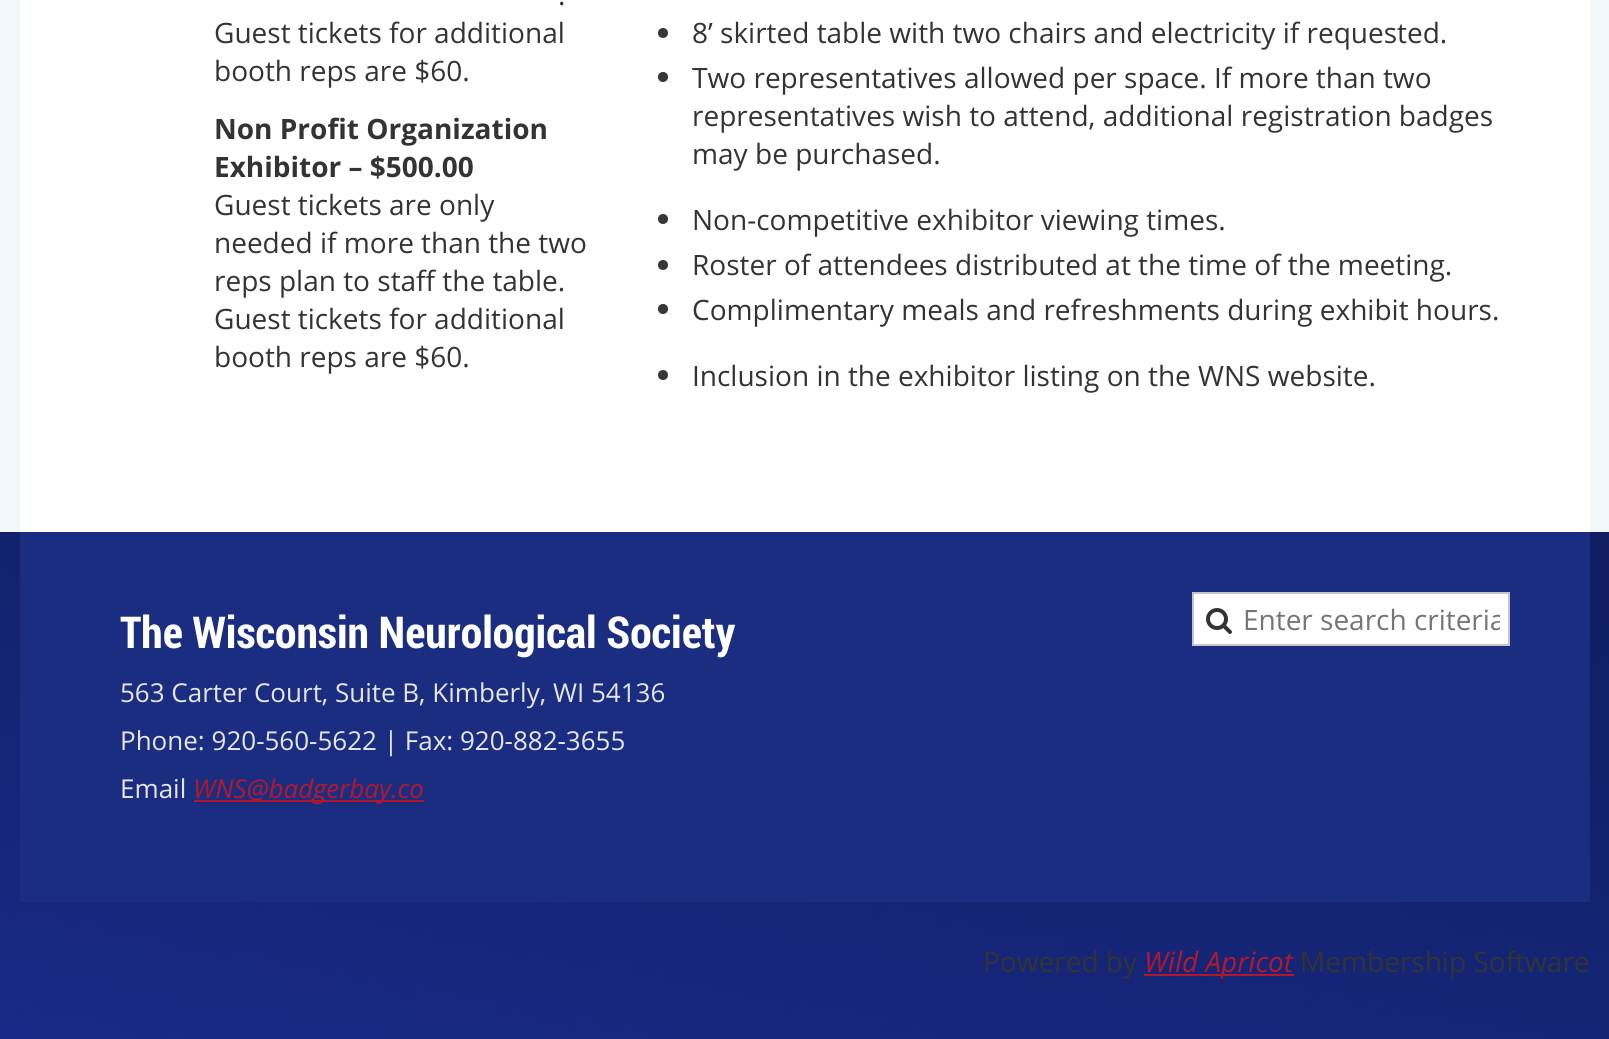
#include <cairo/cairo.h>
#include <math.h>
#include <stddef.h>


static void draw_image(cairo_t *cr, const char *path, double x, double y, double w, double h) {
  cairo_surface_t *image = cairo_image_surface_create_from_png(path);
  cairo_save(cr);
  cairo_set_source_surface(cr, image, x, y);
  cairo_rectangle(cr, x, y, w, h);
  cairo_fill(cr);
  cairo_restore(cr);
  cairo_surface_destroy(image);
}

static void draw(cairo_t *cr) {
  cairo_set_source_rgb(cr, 1, 1, 1);
  cairo_paint(cr);
  draw_image(cr, "images/1.png", 0, 532, 1609, 507);
  cairo_set_source_rgb(cr, 242 / 255.0, 247 / 255.0, 251 / 255.0);
  cairo_rectangle(cr, 0, 0, 1609, 532);
  cairo_fill(cr);
  cairo_set_source_rgb(cr, 1, 1, 1);
  cairo_rectangle(cr, 20, 0, 1570, 532);
  cairo_fill(cr);
  cairo_set_source_rgb(cr, 55 / 255.0, 55 / 255.0, 55 / 255.0);
  cairo_arc(cr, 663, 33, 5, 0, 2 * M_PI);
  cairo_fill(cr);
  cairo_arc(cr, 663, 77, 5, 0, 2 * M_PI);
  cairo_fill(cr);
  cairo_arc(cr, 663, 219, 5, 0, 2 * M_PI);
  cairo_fill(cr);
  cairo_arc(cr, 663, 265, 5, 0, 2 * M_PI);
  cairo_fill(cr);
  cairo_arc(cr, 663, 309, 5, 0, 2 * M_PI);
  cairo_fill(cr);
  cairo_arc(cr, 663, 375, 5, 0, 2 * M_PI);
  cairo_fill(cr);
  cairo_set_source_rgb(cr, 26 / 255.0, 45 / 255.0, 129 / 255.0);
  cairo_rectangle(cr, 20, 532, 1570, 370);
  cairo_fill(cr);
  cairo_set_source_rgb(cr, 178 / 255.0, 24 / 255.0, 43 / 255.0);
  cairo_rectangle(cr, 194, 800, 230, 2);
  cairo_fill(cr);
  cairo_set_source_rgb(cr, 1, 1, 1);
  cairo_rectangle(cr, 1193, 593, 316, 52);
  cairo_fill_preserve(cr);
  cairo_set_source_rgb(cr, 198 / 255.0, 198 / 255.0, 198 / 255.0);
  cairo_stroke(cr);
  draw_image(cr, "images/2.png", 1206, 608, 26, 26);
  cairo_set_source_rgb(cr, 178 / 255.0, 24 / 255.0, 43 / 255.0);
  cairo_rectangle(cr, 1144, 974, 150, 2);
  cairo_fill(cr);
  cairo_select_font_face(cr, "Open Sans", CAIRO_FONT_SLANT_NORMAL, CAIRO_FONT_WEIGHT_NORMAL);
  cairo_set_font_size(cr, 28);
  cairo_set_source_rgb(cr, 51 / 255.0, 51 / 255.0, 51 / 255.0);
  cairo_move_to(cr, 558, 5);
  cairo_show_text(cr, ".");
  cairo_move_to(cr, 214, 43);
  cairo_show_text(cr, "Guest tickets for additional");
  cairo_move_to(cr, 214, 81);
  cairo_show_text(cr, "booth reps are $60.");
  cairo_select_font_face(cr, "Open Sans", CAIRO_FONT_SLANT_NORMAL, CAIRO_FONT_WEIGHT_BOLD);
  cairo_move_to(cr, 214, 139);
  cairo_show_text(cr, "Non Profit Organization");
  cairo_move_to(cr, 214, 177);
  cairo_show_text(cr, "Exhibitor – $500.00");
  cairo_select_font_face(cr, "Open Sans", CAIRO_FONT_SLANT_NORMAL, CAIRO_FONT_WEIGHT_NORMAL);
  cairo_move_to(cr, 214, 215);
  cairo_show_text(cr, "Guest tickets are only");
  cairo_move_to(cr, 214, 253);
  cairo_show_text(cr, "needed if more than the two");
  cairo_move_to(cr, 214, 291);
  cairo_show_text(cr, "reps plan to staff the table.");
  cairo_move_to(cr, 214, 329);
  cairo_show_text(cr, "Guest tickets for additional");
  cairo_move_to(cr, 214, 367);
  cairo_show_text(cr, "booth reps are $60.");
  cairo_move_to(cr, 692, 43);
  cairo_show_text(cr, "8’ skirted table with two chairs and electricity if requested.");
  cairo_move_to(cr, 692, 88);
  cairo_show_text(cr, "Two representatives allowed per space. If more than two");
  cairo_move_to(cr, 692, 126);
  cairo_show_text(cr, "representatives wish to attend, additional registration badges");
  cairo_move_to(cr, 692, 164);
  cairo_show_text(cr, "may be purchased.");
  cairo_move_to(cr, 692, 230);
  cairo_show_text(cr, "Non-competitive exhibitor viewing times.");
  cairo_move_to(cr, 692, 275);
  cairo_show_text(cr, "Roster of attendees distributed at the time of the meeting.");
  cairo_move_to(cr, 692, 320);
  cairo_show_text(cr, "Complimentary meals and refreshments during exhibit hours.");
  cairo_move_to(cr, 692, 386);
  cairo_show_text(cr, "Inclusion in the exhibitor listing on the WNS website.");
  cairo_select_font_face(cr, "Roboto Condensed", CAIRO_FONT_SLANT_NORMAL, CAIRO_FONT_WEIGHT_BOLD);
  cairo_set_font_size(cr, 44);
  cairo_set_source_rgb(cr, 1, 1, 1);
  cairo_move_to(cr, 120, 648);
  cairo_show_text(cr, "The Wisconsin Neurological Society");
  cairo_select_font_face(cr, "Open Sans", CAIRO_FONT_SLANT_NORMAL, CAIRO_FONT_WEIGHT_NORMAL);
  cairo_set_font_size(cr, 26);
  cairo_set_source_rgb(cr, 230 / 255.0, 230 / 255.0, 230 / 255.0);
  cairo_move_to(cr, 120, 702);
  cairo_show_text(cr, "563 Carter Court, Suite B, Kimberly, WI 54136");
  cairo_move_to(cr, 120, 750);
  cairo_show_text(cr, "Phone: 920-560-5622 | Fax: 920-882-3655");
  cairo_move_to(cr, 120, 798);
  cairo_show_text(cr, "Email");
  cairo_select_font_face(cr, "Open Sans", CAIRO_FONT_SLANT_ITALIC, CAIRO_FONT_WEIGHT_NORMAL);
  cairo_set_source_rgb(cr, 178 / 255.0, 24 / 255.0, 43 / 255.0);
  cairo_move_to(cr, 193, 798);
  cairo_show_text(cr, "WNS@badgerbay.co");
  cairo_save(cr);
  cairo_rectangle(cr, 1242, 600, 258, 38);
  cairo_clip(cr);
  cairo_select_font_face(cr, "Open Sans", CAIRO_FONT_SLANT_NORMAL, CAIRO_FONT_WEIGHT_NORMAL);
  cairo_set_font_size(cr, 28);
  cairo_set_source_rgb(cr, 117 / 255.0, 117 / 255.0, 117 / 255.0);
  cairo_move_to(cr, 1243, 630);
  cairo_show_text(cr, "Enter search criteria");
  cairo_restore(cr);
  cairo_select_font_face(cr, "Open Sans", CAIRO_FONT_SLANT_NORMAL, CAIRO_FONT_WEIGHT_NORMAL);
  cairo_set_font_size(cr, 28);
  cairo_set_source_rgb(cr, 51 / 255.0, 51 / 255.0, 51 / 255.0);
  cairo_move_to(cr, 983, 972);
  cairo_show_text(cr, "Powered by");
  cairo_select_font_face(cr, "Open Sans", CAIRO_FONT_SLANT_ITALIC, CAIRO_FONT_WEIGHT_NORMAL);
  cairo_set_source_rgb(cr, 178 / 255.0, 24 / 255.0, 43 / 255.0);
  cairo_move_to(cr, 1144, 972);
  cairo_show_text(cr, "Wild Apricot");
  cairo_select_font_face(cr, "Open Sans", CAIRO_FONT_SLANT_NORMAL, CAIRO_FONT_WEIGHT_NORMAL);
  cairo_set_source_rgb(cr, 51 / 255.0, 51 / 255.0, 51 / 255.0);
  cairo_move_to(cr, 1300, 972);
  cairo_show_text(cr, "Membership Software");
}

int main(void) {
  cairo_surface_t *surface = cairo_image_surface_create(CAIRO_FORMAT_RGB24, 1609, 1039);
  cairo_t *cr = cairo_create(surface);
  cairo_font_options_t *options = cairo_font_options_create();
  cairo_font_options_set_hint_metrics(options, CAIRO_HINT_METRICS_OFF);
  cairo_font_options_set_hint_style(options, CAIRO_HINT_STYLE_NONE);
  cairo_set_font_options(cr, options);
  cairo_set_miter_limit(cr, 4);
  draw(cr);
  cairo_surface_write_to_png(surface, "out.png");
  cairo_font_options_destroy(options);
  cairo_destroy(cr);
  cairo_surface_destroy(surface);
  return 0;
}
